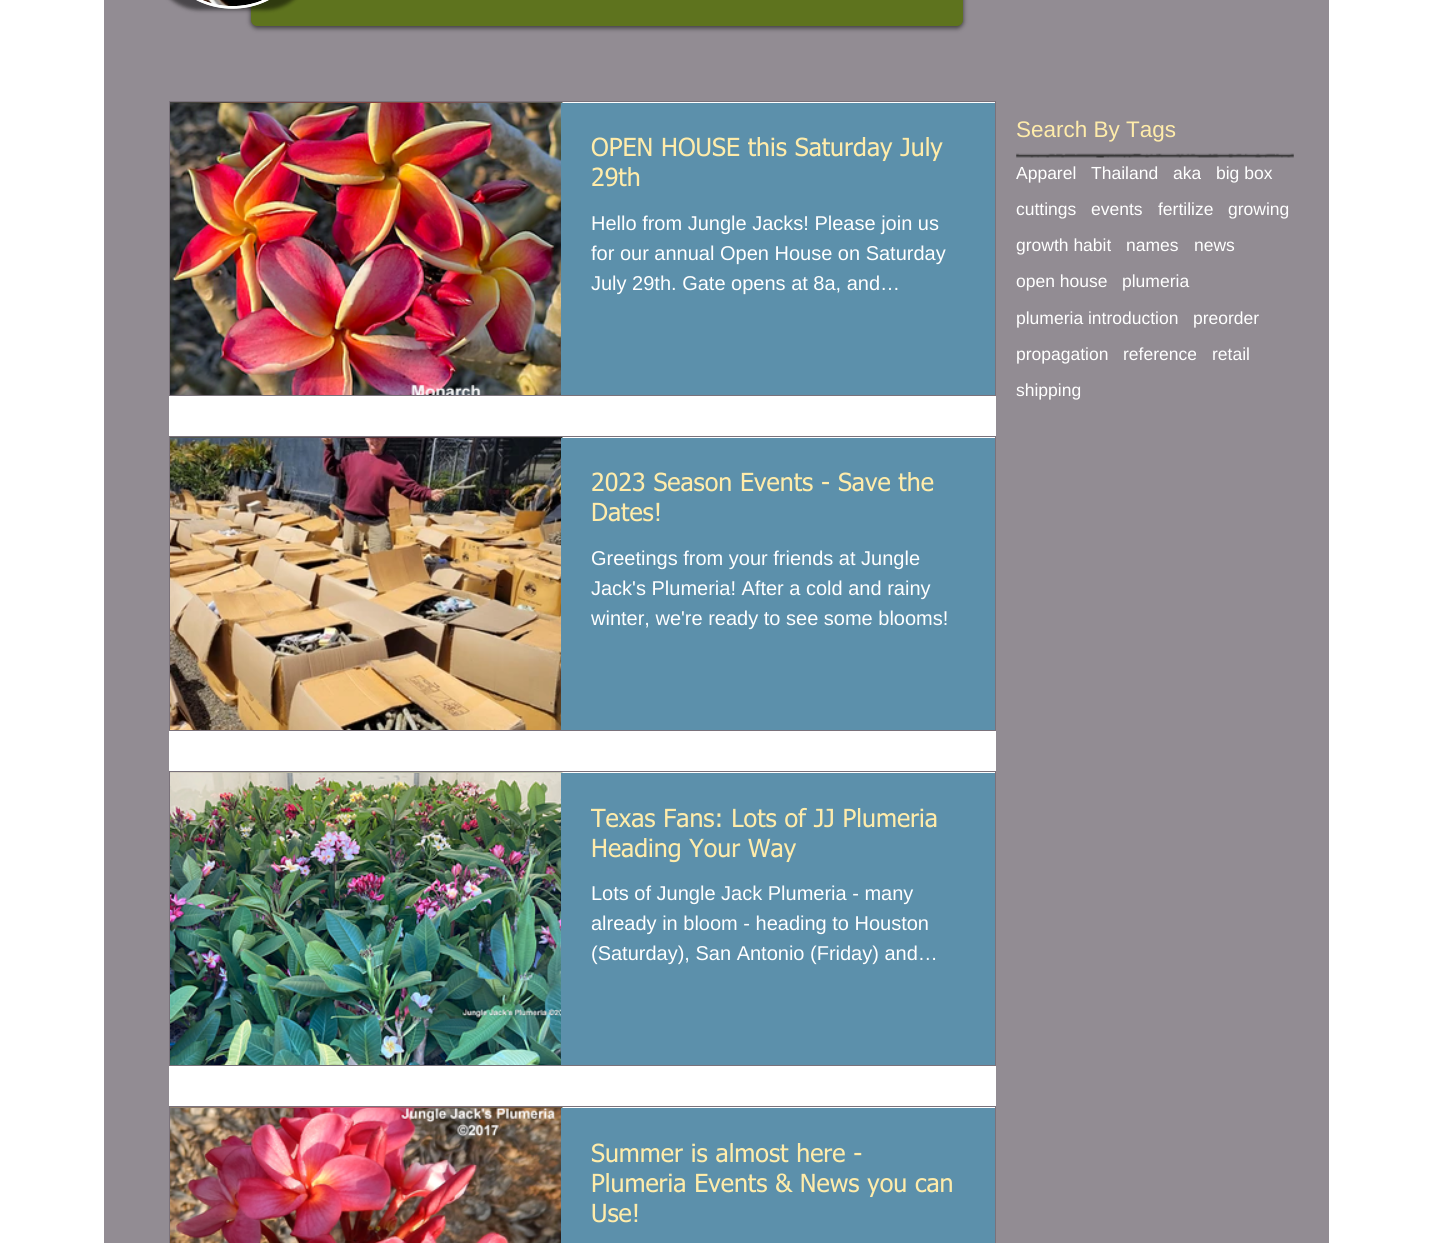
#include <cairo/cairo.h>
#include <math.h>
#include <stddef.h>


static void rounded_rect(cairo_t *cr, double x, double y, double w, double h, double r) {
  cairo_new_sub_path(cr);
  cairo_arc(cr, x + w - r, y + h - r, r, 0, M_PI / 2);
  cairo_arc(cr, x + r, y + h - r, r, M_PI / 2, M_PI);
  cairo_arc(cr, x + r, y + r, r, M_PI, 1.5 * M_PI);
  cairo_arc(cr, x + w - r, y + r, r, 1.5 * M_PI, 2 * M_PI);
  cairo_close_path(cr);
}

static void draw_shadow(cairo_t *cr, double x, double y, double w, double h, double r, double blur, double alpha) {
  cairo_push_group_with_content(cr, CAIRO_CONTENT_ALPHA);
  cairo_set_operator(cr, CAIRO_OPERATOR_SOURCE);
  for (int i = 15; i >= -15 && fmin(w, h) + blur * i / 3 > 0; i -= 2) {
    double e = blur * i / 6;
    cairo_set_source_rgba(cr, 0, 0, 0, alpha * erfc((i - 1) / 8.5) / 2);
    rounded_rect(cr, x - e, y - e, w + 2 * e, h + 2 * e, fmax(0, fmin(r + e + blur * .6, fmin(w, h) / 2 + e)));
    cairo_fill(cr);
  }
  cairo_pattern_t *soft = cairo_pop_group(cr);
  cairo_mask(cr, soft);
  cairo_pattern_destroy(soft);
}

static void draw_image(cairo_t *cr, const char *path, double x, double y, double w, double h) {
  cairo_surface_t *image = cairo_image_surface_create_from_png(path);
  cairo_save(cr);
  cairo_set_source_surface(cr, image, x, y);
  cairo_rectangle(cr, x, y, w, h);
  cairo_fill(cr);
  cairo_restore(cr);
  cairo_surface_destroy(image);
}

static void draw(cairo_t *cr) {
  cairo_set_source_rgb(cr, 1, 1, 1);
  cairo_paint(cr);
  cairo_set_source_rgb(cr, 146 / 255.0, 140 / 255.0, 147 / 255.0);
  cairo_rectangle(cr, 104, 0, 1225, 1243);
  cairo_fill(cr);
  cairo_set_source_rgb(cr, 0, 0, 0);
  draw_shadow(cr, 251, -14, 712, 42, 6, 2.5, 0.6);
  cairo_set_source_rgb(cr, 94 / 255.0, 115 / 255.0, 30 / 255.0);
  rounded_rect(cr, 251, -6, 712, 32, 6);
  cairo_fill(cr);
  cairo_set_source_rgb(cr, 0, 0, 0);
  draw_shadow(cr, 154, -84, 157, 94, 77.5, 2, 0.5);
  cairo_set_source_rgb(cr, 1, 1, 1);
  cairo_new_path(cr);
  cairo_move_to(cr, 232.5, -146.5);
  cairo_curve_to(cr, 276, -146.5, 311.5, -112, 311.5, -69);
  cairo_curve_to(cr, 311.5, -26, 276, 8.5, 232.5, 8.5);
  cairo_curve_to(cr, 189, 8.5, 153.5, -26, 153.5, -69);
  cairo_curve_to(cr, 153.5, -112, 189, -146.5, 232.5, -146.5);
  cairo_close_path(cr);
  cairo_fill(cr);
  cairo_new_path(cr);
  cairo_move_to(cr, 232.5, -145);
  cairo_curve_to(cr, 275.5, -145, 310, -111, 310, -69);
  cairo_curve_to(cr, 310, -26.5, 275.5, 7.5, 232.5, 7.5);
  cairo_curve_to(cr, 189.5, 7.5, 155, -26.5, 155, -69);
  cairo_curve_to(cr, 155, -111, 189.5, -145, 232.5, -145);
  cairo_close_path(cr);
  cairo_set_line_width(cr, 2.5);
  cairo_stroke(cr);
  draw_image(cr, "images/1.png", 203, 0, 59, 6);
  cairo_rectangle(cr, 169, 102, 827, 1006);
  cairo_fill(cr);
  cairo_rectangle(cr, 169.5, 101.5, 826, 294);
  cairo_set_source_rgb(cr, 122 / 255.0, 114 / 255.0, 123 / 255.0);
  cairo_set_line_width(cr, 1);
  cairo_stroke(cr);
  draw_image(cr, "images/2.png", 170, 102, 393, 1);
  draw_image(cr, "images/3.png", 170, 103, 391, 292);
  cairo_set_source_rgb(cr, 92 / 255.0, 144 / 255.0, 171 / 255.0);
  cairo_rectangle(cr, 561, 103, 434, 292);
  cairo_fill(cr);
  cairo_rectangle(cr, 169.5, 436.5, 826, 294);
  cairo_set_source_rgb(cr, 122 / 255.0, 114 / 255.0, 123 / 255.0);
  cairo_stroke(cr);
  draw_image(cr, "images/4.png", 170, 437, 393, 1);
  draw_image(cr, "images/5.png", 170, 438, 391, 292);
  cairo_set_source_rgb(cr, 92 / 255.0, 144 / 255.0, 171 / 255.0);
  cairo_rectangle(cr, 561, 438, 434, 292);
  cairo_fill(cr);
  cairo_rectangle(cr, 169.5, 771.5, 826, 294);
  cairo_set_source_rgb(cr, 122 / 255.0, 114 / 255.0, 123 / 255.0);
  cairo_stroke(cr);
  draw_image(cr, "images/6.png", 170, 772, 393, 1);
  draw_image(cr, "images/7.png", 170, 773, 391, 292);
  cairo_set_source_rgb(cr, 92 / 255.0, 144 / 255.0, 171 / 255.0);
  cairo_rectangle(cr, 561, 773, 434, 292);
  cairo_fill(cr);
  cairo_rectangle(cr, 169.5, 1106.5, 826, 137);
  cairo_set_source_rgb(cr, 122 / 255.0, 114 / 255.0, 123 / 255.0);
  cairo_stroke(cr);
  draw_image(cr, "images/8.png", 170, 1107, 393, 1);
  draw_image(cr, "images/9.png", 170, 1108, 391, 135);
  cairo_set_source_rgb(cr, 92 / 255.0, 144 / 255.0, 171 / 255.0);
  cairo_rectangle(cr, 561, 1108, 434, 135);
  cairo_fill(cr);
  draw_image(cr, "images/10.png", 1016, 153, 278, 5);
  cairo_select_font_face(cr, "Liberation Sans", CAIRO_FONT_SLANT_NORMAL, CAIRO_FONT_WEIGHT_NORMAL);
  cairo_set_font_size(cr, 22.5);
  cairo_set_source_rgb(cr, 1, 236 / 255.0, 170 / 255.0);
  cairo_move_to(cr, 1016, 137);
  cairo_show_text(cr, "Search By Tags");
  cairo_select_font_face(cr, "tahoma", CAIRO_FONT_SLANT_NORMAL, CAIRO_FONT_WEIGHT_NORMAL);
  cairo_set_font_size(cr, 25);
  cairo_move_to(cr, 591, 156);
  cairo_show_text(cr, "OPEN HOUSE this Saturday July");
  cairo_move_to(cr, 591, 186);
  cairo_show_text(cr, "29th");
  cairo_select_font_face(cr, "Liberation Sans", CAIRO_FONT_SLANT_NORMAL, CAIRO_FONT_WEIGHT_NORMAL);
  cairo_set_font_size(cr, 20);
  cairo_set_source_rgb(cr, 1, 1, 1);
  cairo_move_to(cr, 591, 230);
  cairo_show_text(cr, "Hello from Jungle Jacks! Please join us");
  cairo_move_to(cr, 591, 260);
  cairo_show_text(cr, "for our annual Open House on Saturday");
  cairo_move_to(cr, 591, 290);
  cairo_show_text(cr, "July 29th. Gate opens at 8a, and…");
  cairo_select_font_face(cr, "tahoma", CAIRO_FONT_SLANT_NORMAL, CAIRO_FONT_WEIGHT_NORMAL);
  cairo_set_font_size(cr, 25);
  cairo_set_source_rgb(cr, 1, 236 / 255.0, 170 / 255.0);
  cairo_move_to(cr, 591, 491);
  cairo_show_text(cr, "2023 Season Events - Save the");
  cairo_move_to(cr, 591, 521);
  cairo_show_text(cr, "Dates!");
  cairo_select_font_face(cr, "Liberation Sans", CAIRO_FONT_SLANT_NORMAL, CAIRO_FONT_WEIGHT_NORMAL);
  cairo_set_font_size(cr, 20);
  cairo_set_source_rgb(cr, 1, 1, 1);
  cairo_move_to(cr, 591, 565);
  cairo_show_text(cr, "Greetings from your friends at Jungle");
  cairo_move_to(cr, 591, 595);
  cairo_show_text(cr, "Jack's Plumeria! After a cold and rainy");
  cairo_move_to(cr, 591, 625);
  cairo_show_text(cr, "winter, we're ready to see some blooms!");
  cairo_save(cr);
  cairo_rectangle(cr, 591, 804, 374, 60);
  cairo_clip(cr);
  cairo_select_font_face(cr, "tahoma", CAIRO_FONT_SLANT_NORMAL, CAIRO_FONT_WEIGHT_NORMAL);
  cairo_set_font_size(cr, 25);
  cairo_set_source_rgb(cr, 1, 236 / 255.0, 170 / 255.0);
  cairo_move_to(cr, 591, 827);
  cairo_show_text(cr, "Texas Fans: Lots of JJ Plumeria");
  cairo_restore(cr);
  cairo_select_font_face(cr, "tahoma", CAIRO_FONT_SLANT_NORMAL, CAIRO_FONT_WEIGHT_NORMAL);
  cairo_set_font_size(cr, 25);
  cairo_set_source_rgb(cr, 1, 236 / 255.0, 170 / 255.0);
  cairo_move_to(cr, 591, 857);
  cairo_show_text(cr, "Heading Your Way");
  cairo_select_font_face(cr, "Liberation Sans", CAIRO_FONT_SLANT_NORMAL, CAIRO_FONT_WEIGHT_NORMAL);
  cairo_set_font_size(cr, 20);
  cairo_set_source_rgb(cr, 1, 1, 1);
  cairo_move_to(cr, 591, 900);
  cairo_show_text(cr, "Lots of Jungle Jack Plumeria - many");
  cairo_move_to(cr, 591, 930);
  cairo_show_text(cr, "already in bloom - heading to Houston");
  cairo_move_to(cr, 591, 960);
  cairo_show_text(cr, "(Saturday), San Antonio (Friday) and…");
  cairo_select_font_face(cr, "tahoma", CAIRO_FONT_SLANT_NORMAL, CAIRO_FONT_WEIGHT_NORMAL);
  cairo_set_font_size(cr, 25);
  cairo_set_source_rgb(cr, 1, 236 / 255.0, 170 / 255.0);
  cairo_move_to(cr, 591, 1162);
  cairo_show_text(cr, "Summer is almost here -");
  cairo_move_to(cr, 591, 1192);
  cairo_show_text(cr, "Plumeria Events & News you can");
  cairo_move_to(cr, 591, 1222);
  cairo_show_text(cr, "Use!");
  cairo_select_font_face(cr, "Liberation Sans", CAIRO_FONT_SLANT_NORMAL, CAIRO_FONT_WEIGHT_NORMAL);
  cairo_set_font_size(cr, 17.5);
  cairo_set_source_rgb(cr, 1, 1, 1);
  cairo_move_to(cr, 1016, 179);
  cairo_show_text(cr, "Apparel");
  cairo_move_to(cr, 1091, 179);
  cairo_show_text(cr, "Thailand");
  cairo_move_to(cr, 1173, 179);
  cairo_show_text(cr, "aka");
  cairo_move_to(cr, 1216, 179);
  cairo_show_text(cr, "big box");
  cairo_move_to(cr, 1016, 215);
  cairo_show_text(cr, "cuttings");
  cairo_move_to(cr, 1091, 215);
  cairo_show_text(cr, "events");
  cairo_move_to(cr, 1158, 215);
  cairo_show_text(cr, "fertilize");
  cairo_move_to(cr, 1228, 215);
  cairo_show_text(cr, "growing");
  cairo_move_to(cr, 1016, 251);
  cairo_show_text(cr, "growth habit");
  cairo_move_to(cr, 1126, 251);
  cairo_show_text(cr, "names");
  cairo_move_to(cr, 1194, 251);
  cairo_show_text(cr, "news");
  cairo_move_to(cr, 1016, 287);
  cairo_show_text(cr, "open house");
  cairo_move_to(cr, 1122, 287);
  cairo_show_text(cr, "plumeria");
  cairo_move_to(cr, 1016, 324);
  cairo_show_text(cr, "plumeria introduction");
  cairo_move_to(cr, 1193, 324);
  cairo_show_text(cr, "preorder");
  cairo_move_to(cr, 1016, 360);
  cairo_show_text(cr, "propagation");
  cairo_move_to(cr, 1123, 360);
  cairo_show_text(cr, "reference");
  cairo_move_to(cr, 1212, 360);
  cairo_show_text(cr, "retail");
  cairo_move_to(cr, 1016, 396);
  cairo_show_text(cr, "shipping");
}

int main(void) {
  cairo_surface_t *surface = cairo_image_surface_create(CAIRO_FORMAT_RGB24, 1431, 1243);
  cairo_t *cr = cairo_create(surface);
  cairo_font_options_t *options = cairo_font_options_create();
  cairo_font_options_set_hint_metrics(options, CAIRO_HINT_METRICS_OFF);
  cairo_font_options_set_hint_style(options, CAIRO_HINT_STYLE_NONE);
  cairo_set_font_options(cr, options);
  cairo_set_miter_limit(cr, 4);
  draw(cr);
  cairo_surface_write_to_png(surface, "out.png");
  cairo_font_options_destroy(options);
  cairo_destroy(cr);
  cairo_surface_destroy(surface);
  return 0;
}
